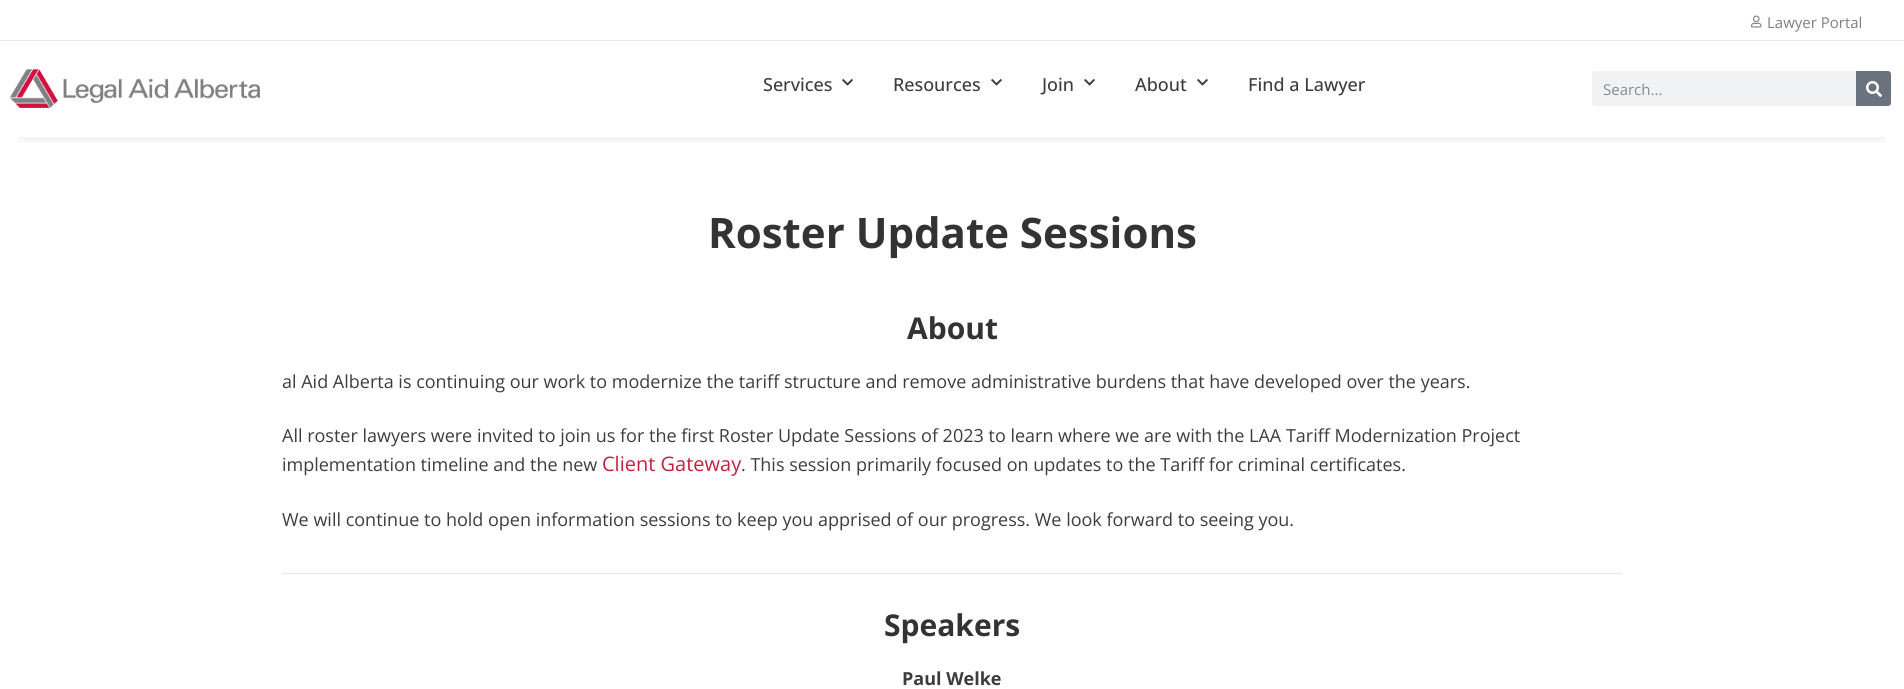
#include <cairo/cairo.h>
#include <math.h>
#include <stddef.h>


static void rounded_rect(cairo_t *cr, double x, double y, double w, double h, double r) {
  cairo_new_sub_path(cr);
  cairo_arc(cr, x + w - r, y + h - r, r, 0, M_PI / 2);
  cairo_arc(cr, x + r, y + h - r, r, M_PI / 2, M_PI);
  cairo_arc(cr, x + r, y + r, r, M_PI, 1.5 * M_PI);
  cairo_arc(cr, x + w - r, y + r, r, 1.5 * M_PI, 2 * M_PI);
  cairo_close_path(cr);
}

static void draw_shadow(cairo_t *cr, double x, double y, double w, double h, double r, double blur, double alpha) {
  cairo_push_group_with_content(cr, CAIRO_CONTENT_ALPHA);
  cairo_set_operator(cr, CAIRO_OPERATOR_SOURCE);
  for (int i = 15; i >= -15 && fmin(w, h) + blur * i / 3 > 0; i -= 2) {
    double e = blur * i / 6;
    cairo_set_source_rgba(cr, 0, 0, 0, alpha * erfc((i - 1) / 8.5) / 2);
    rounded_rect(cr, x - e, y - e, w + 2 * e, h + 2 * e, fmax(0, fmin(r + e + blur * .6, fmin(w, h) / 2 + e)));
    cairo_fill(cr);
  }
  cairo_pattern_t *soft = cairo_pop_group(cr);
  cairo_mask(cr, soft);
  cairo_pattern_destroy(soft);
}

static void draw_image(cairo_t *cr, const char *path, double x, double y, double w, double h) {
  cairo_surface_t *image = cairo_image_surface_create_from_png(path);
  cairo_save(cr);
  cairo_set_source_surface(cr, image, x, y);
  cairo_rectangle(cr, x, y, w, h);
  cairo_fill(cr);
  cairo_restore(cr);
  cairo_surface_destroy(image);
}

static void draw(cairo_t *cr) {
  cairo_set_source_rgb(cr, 1, 1, 1);
  cairo_paint(cr);
  cairo_set_source_rgb(cr, 233 / 255.0, 233 / 255.0, 233 / 255.0);
  cairo_rectangle(cr, 0, 40, 1904, 1);
  cairo_fill(cr);
  draw_image(cr, "images/1.png", 1751, 15, 11, 13);
  cairo_save(cr);
  cairo_rectangle(cr, 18, 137, 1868, 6);
  cairo_clip(cr);
  cairo_set_source_rgb(cr, 0, 0, 0);
  draw_shadow(cr, 21, 76, 1862, 54, 0, 8.5, 0.29);
  cairo_restore(cr);
  draw_image(cr, "images/2.png", 10, 69, 250, 39);
  draw_image(cr, "images/3.png", 842, 79, 11, 7);
  draw_image(cr, "images/3.png", 991, 79, 11, 7);
  draw_image(cr, "images/3.png", 1084, 79, 11, 7);
  draw_image(cr, "images/3.png", 1197, 79, 11, 7);
  cairo_set_source_rgb(cr, 241 / 255.0, 242 / 255.0, 243 / 255.0);
  rounded_rect(cr, 1592, 71, 299, 35, 3);
  cairo_fill(cr);
  cairo_set_source_rgb(cr, 105 / 255.0, 114 / 255.0, 125 / 255.0);
  cairo_new_path(cr);
  cairo_move_to(cr, 1856, 71);
  cairo_line_to(cr, 1888, 71);
  cairo_curve_to(cr, 1889.5, 71, 1891, 72.5, 1891, 74);
  cairo_line_to(cr, 1891, 103);
  cairo_curve_to(cr, 1891, 104.5, 1889.5, 106, 1888, 106);
  cairo_line_to(cr, 1856, 106);
  cairo_close_path(cr);
  cairo_fill(cr);
  draw_image(cr, "images/4.png", 1866, 81, 16, 16);
  cairo_set_source_rgb(cr, 229 / 255.0, 229 / 255.0, 229 / 255.0);
  cairo_rectangle(cr, 282, 573, 1340, 1);
  cairo_fill(cr);
  cairo_select_font_face(cr, "Open Sans", CAIRO_FONT_SLANT_NORMAL, CAIRO_FONT_WEIGHT_NORMAL);
  cairo_set_font_size(cr, 15);
  cairo_set_source_rgb(cr, 126 / 255.0, 128 / 255.0, 131 / 255.0);
  cairo_move_to(cr, 1767, 28);
  cairo_show_text(cr, "Lawyer Portal");
  cairo_select_font_face(cr, "Open Sans Medium", CAIRO_FONT_SLANT_NORMAL, CAIRO_FONT_WEIGHT_NORMAL);
  cairo_set_font_size(cr, 18);
  cairo_set_source_rgb(cr, 61 / 255.0, 61 / 255.0, 61 / 255.0);
  cairo_move_to(cr, 763, 91);
  cairo_show_text(cr, "Services");
  cairo_move_to(cr, 893, 91);
  cairo_show_text(cr, "Resources");
  cairo_move_to(cr, 1042, 91);
  cairo_show_text(cr, "Join");
  cairo_move_to(cr, 1135, 91);
  cairo_show_text(cr, "About");
  cairo_move_to(cr, 1248, 91);
  cairo_show_text(cr, "Find a Lawyer");
  cairo_select_font_face(cr, "Open Sans", CAIRO_FONT_SLANT_NORMAL, CAIRO_FONT_WEIGHT_NORMAL);
  cairo_set_font_size(cr, 15);
  cairo_set_source_rgb(cr, 134 / 255.0, 138 / 255.0, 142 / 255.0);
  cairo_move_to(cr, 1603, 95);
  cairo_show_text(cr, "Search...");
  cairo_select_font_face(cr, "Open Sans", CAIRO_FONT_SLANT_NORMAL, CAIRO_FONT_WEIGHT_BOLD);
  cairo_set_font_size(cr, 42);
  cairo_set_source_rgb(cr, 51 / 255.0, 51 / 255.0, 51 / 255.0);
  cairo_move_to(cr, 708, 248);
  cairo_show_text(cr, "Roster Update Sessions");
  cairo_set_font_size(cr, 30);
  cairo_move_to(cr, 907, 339);
  cairo_show_text(cr, "About");
  cairo_select_font_face(cr, "Open Sans", CAIRO_FONT_SLANT_NORMAL, CAIRO_FONT_WEIGHT_NORMAL);
  cairo_set_font_size(cr, 18);
  cairo_set_source_rgb(cr, 61 / 255.0, 61 / 255.0, 61 / 255.0);
  cairo_move_to(cr, 282, 388);
  cairo_show_text(cr, "al Aid Alberta is continuing our work to modernize the tariff structure and remove administrative burdens that have developed over the years.");
  cairo_move_to(cr, 282, 442);
  cairo_show_text(cr, "All roster lawyers were invited to join us for the first Roster Update Sessions of 2023 to learn where we are with the LAA Tariff Modernization Project");
  cairo_move_to(cr, 282, 471);
  cairo_show_text(cr, "implementation timeline and the new");
  cairo_set_font_size(cr, 20);
  cairo_set_source_rgb(cr, 199 / 255.0, 31 / 255.0, 63 / 255.0);
  cairo_move_to(cr, 602, 471);
  cairo_show_text(cr, "Client Gateway");
  cairo_set_font_size(cr, 18);
  cairo_set_source_rgb(cr, 61 / 255.0, 61 / 255.0, 61 / 255.0);
  cairo_move_to(cr, 741, 471);
  cairo_show_text(cr, ". This session primarily focused on updates to the Tariff for criminal certificates.");
  cairo_move_to(cr, 282, 526);
  cairo_show_text(cr, "We will continue to hold open information sessions to keep you apprised of our progress. We look forward to seeing you.");
  cairo_select_font_face(cr, "Open Sans", CAIRO_FONT_SLANT_NORMAL, CAIRO_FONT_WEIGHT_BOLD);
  cairo_set_font_size(cr, 30);
  cairo_set_source_rgb(cr, 51 / 255.0, 51 / 255.0, 51 / 255.0);
  cairo_move_to(cr, 884, 636);
  cairo_show_text(cr, "Speakers");
  cairo_set_font_size(cr, 18);
  cairo_set_source_rgb(cr, 61 / 255.0, 61 / 255.0, 61 / 255.0);
  cairo_move_to(cr, 902, 685);
  cairo_show_text(cr, "Paul Welke");
}

int main(void) {
  cairo_surface_t *surface = cairo_image_surface_create(CAIRO_FORMAT_RGB24, 1904, 689);
  cairo_t *cr = cairo_create(surface);
  cairo_font_options_t *options = cairo_font_options_create();
  cairo_font_options_set_hint_metrics(options, CAIRO_HINT_METRICS_OFF);
  cairo_font_options_set_hint_style(options, CAIRO_HINT_STYLE_NONE);
  cairo_set_font_options(cr, options);
  cairo_set_miter_limit(cr, 4);
  draw(cr);
  cairo_surface_write_to_png(surface, "out.png");
  cairo_font_options_destroy(options);
  cairo_destroy(cr);
  cairo_surface_destroy(surface);
  return 0;
}
